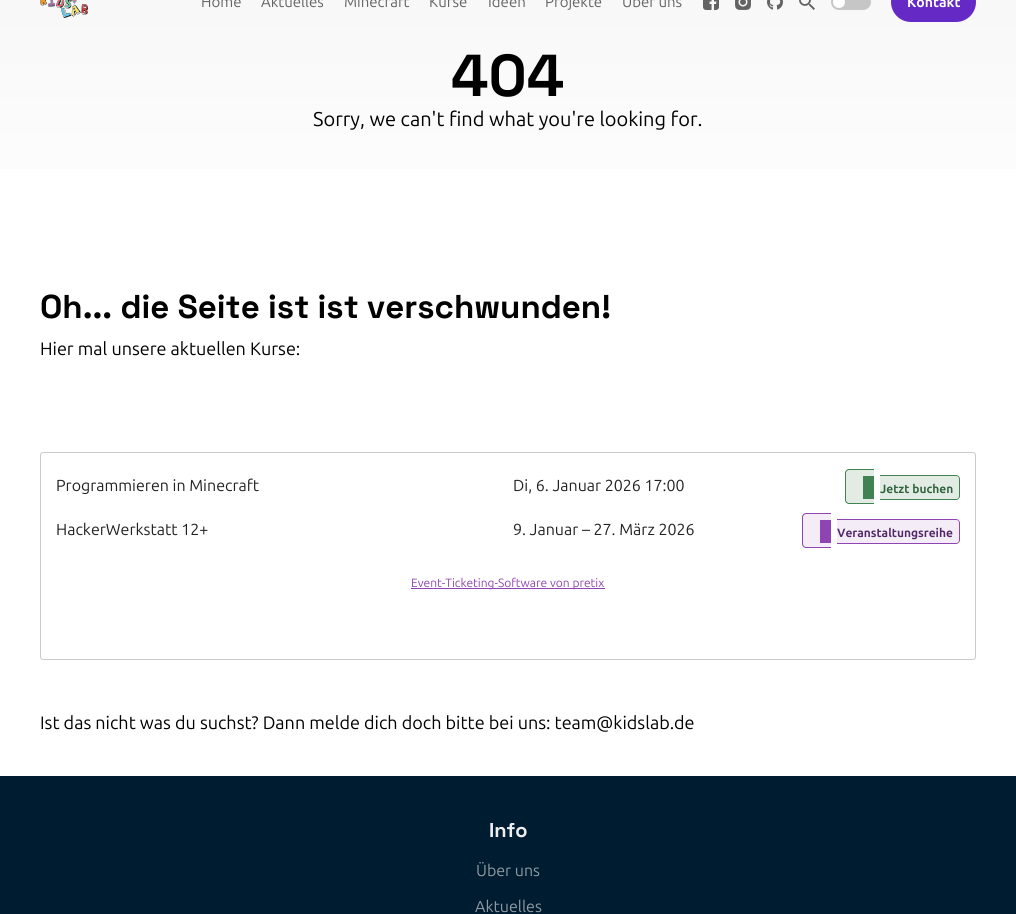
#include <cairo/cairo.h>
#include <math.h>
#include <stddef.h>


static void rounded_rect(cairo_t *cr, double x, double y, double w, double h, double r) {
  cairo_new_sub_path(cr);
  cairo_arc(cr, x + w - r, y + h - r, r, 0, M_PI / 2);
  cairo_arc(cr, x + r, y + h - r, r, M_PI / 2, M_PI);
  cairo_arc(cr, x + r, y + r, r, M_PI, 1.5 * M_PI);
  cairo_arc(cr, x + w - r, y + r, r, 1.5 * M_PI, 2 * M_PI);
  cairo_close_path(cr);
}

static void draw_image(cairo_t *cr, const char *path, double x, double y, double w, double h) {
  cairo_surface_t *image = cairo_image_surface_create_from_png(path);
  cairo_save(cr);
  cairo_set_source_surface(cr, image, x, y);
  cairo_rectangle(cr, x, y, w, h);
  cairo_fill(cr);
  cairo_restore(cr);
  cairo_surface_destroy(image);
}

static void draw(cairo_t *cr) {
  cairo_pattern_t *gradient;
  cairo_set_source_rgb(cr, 1, 1, 1);
  cairo_paint(cr);
  gradient = cairo_pattern_create_linear(508, -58, 508, 256);
  cairo_pattern_add_color_stop_rgba(gradient, 0, 246 / 255.0, 246 / 255.0, 246 / 255.0, 1);
  cairo_pattern_add_color_stop_rgba(gradient, 1, 1, 1, 1, 1);
  cairo_set_source(cr, gradient);
  cairo_pattern_destroy(gradient);
  cairo_rectangle(cr, 0, 0, 1016, 169);
  cairo_fill(cr);
  draw_image(cr, "images/1.png", 40, 0, 48, 18);
  draw_image(cr, "images/2.png", 703, 0, 16, 10);
  draw_image(cr, "images/3.png", 735, 0, 16, 10);
  draw_image(cr, "images/4.png", 767, 0, 16, 10);
  draw_image(cr, "images/5.png", 799, 0, 16, 10);
  cairo_set_source_rgb(cr, 198 / 255.0, 198 / 255.0, 198 / 255.0);
  rounded_rect(cr, 831, -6, 40, 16, 8);
  cairo_fill(cr);
  cairo_set_source_rgb(cr, 1, 1, 1);
  cairo_arc(cr, 839, 2, 6, 0, 2 * M_PI);
  cairo_fill(cr);
  cairo_set_source_rgb(cr, 101 / 255.0, 41 / 255.0, 197 / 255.0);
  rounded_rect(cr, 891, -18, 85, 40, 20);
  cairo_fill(cr);
  rounded_rect(cr, 40.5, 452.5, 935, 207, 2.5);
  cairo_set_source_rgb(cr, 204 / 255.0, 204 / 255.0, 204 / 255.0);
  cairo_set_line_width(cr, 1);
  cairo_stroke(cr);
  cairo_set_source_rgb(cr, 226 / 255.0, 236 / 255.0, 229 / 255.0);
  cairo_new_path(cr);
  cairo_move_to(cr, 849, 469);
  cairo_line_to(cr, 874, 469);
  cairo_line_to(cr, 874, 504);
  cairo_line_to(cr, 849, 504);
  cairo_curve_to(cr, 847, 504, 845, 502, 845, 500);
  cairo_line_to(cr, 845, 473);
  cairo_curve_to(cr, 845, 471, 847, 469, 849, 469);
  cairo_close_path(cr);
  cairo_fill(cr);
  cairo_set_source_rgb(cr, 64 / 255.0, 130 / 255.0, 82 / 255.0);
  cairo_set_fill_rule(cr, CAIRO_FILL_RULE_EVEN_ODD);
  cairo_new_path(cr);
  cairo_move_to(cr, 849, 469);
  cairo_line_to(cr, 874, 469);
  cairo_line_to(cr, 874, 504);
  cairo_line_to(cr, 849, 504);
  cairo_curve_to(cr, 847, 504, 845, 502, 845, 500);
  cairo_line_to(cr, 845, 473);
  cairo_curve_to(cr, 845, 471, 847, 469, 849, 469);
  cairo_close_path(cr);
  cairo_move_to(cr, 849, 470);
  cairo_line_to(cr, 874, 470);
  cairo_line_to(cr, 874, 503);
  cairo_line_to(cr, 849, 503);
  cairo_curve_to(cr, 847.5, 503, 846, 501.5, 846, 500);
  cairo_line_to(cr, 846, 473);
  cairo_curve_to(cr, 846, 471.5, 847.5, 470, 849, 470);
  cairo_close_path(cr);
  cairo_fill(cr);
  cairo_set_source_rgb(cr, 226 / 255.0, 236 / 255.0, 229 / 255.0);
  cairo_new_path(cr);
  cairo_move_to(cr, 880, 475);
  cairo_line_to(cr, 956, 475);
  cairo_curve_to(cr, 958, 475, 960, 477, 960, 479);
  cairo_line_to(cr, 960, 496);
  cairo_curve_to(cr, 960, 498, 958, 500, 956, 500);
  cairo_line_to(cr, 880, 500);
  cairo_close_path(cr);
  cairo_fill(cr);
  cairo_set_source_rgb(cr, 64 / 255.0, 130 / 255.0, 82 / 255.0);
  cairo_new_path(cr);
  cairo_move_to(cr, 880, 475);
  cairo_line_to(cr, 956, 475);
  cairo_curve_to(cr, 958, 475, 960, 477, 960, 479);
  cairo_line_to(cr, 960, 496);
  cairo_curve_to(cr, 960, 498, 958, 500, 956, 500);
  cairo_line_to(cr, 880, 500);
  cairo_close_path(cr);
  cairo_move_to(cr, 880, 476);
  cairo_line_to(cr, 956, 476);
  cairo_curve_to(cr, 958, 476, 959, 477, 959, 479);
  cairo_line_to(cr, 959, 496);
  cairo_curve_to(cr, 959, 498, 958, 499, 956, 499);
  cairo_line_to(cr, 880, 499);
  cairo_close_path(cr);
  cairo_fill(cr);
  cairo_rectangle(cr, 863, 476, 11, 23);
  cairo_fill(cr);
  cairo_set_source_rgb(cr, 244 / 255.0, 236 / 255.0, 247 / 255.0);
  cairo_new_path(cr);
  cairo_move_to(cr, 806, 513);
  cairo_line_to(cr, 831, 513);
  cairo_line_to(cr, 831, 548);
  cairo_line_to(cr, 806, 548);
  cairo_curve_to(cr, 804, 548, 802, 546, 802, 544);
  cairo_line_to(cr, 802, 517);
  cairo_curve_to(cr, 802, 515, 804, 513, 806, 513);
  cairo_close_path(cr);
  cairo_fill(cr);
  cairo_set_source_rgb(cr, 142 / 255.0, 68 / 255.0, 179 / 255.0);
  cairo_new_path(cr);
  cairo_move_to(cr, 806, 513);
  cairo_line_to(cr, 831, 513);
  cairo_line_to(cr, 831, 548);
  cairo_line_to(cr, 806, 548);
  cairo_curve_to(cr, 804, 548, 802, 546, 802, 544);
  cairo_line_to(cr, 802, 517);
  cairo_curve_to(cr, 802, 515, 804, 513, 806, 513);
  cairo_close_path(cr);
  cairo_move_to(cr, 806, 514);
  cairo_line_to(cr, 831, 514);
  cairo_line_to(cr, 831, 547);
  cairo_line_to(cr, 806, 547);
  cairo_curve_to(cr, 804.5, 547, 803, 545.5, 803, 544);
  cairo_line_to(cr, 803, 517);
  cairo_curve_to(cr, 803, 515.5, 804.5, 514, 806, 514);
  cairo_close_path(cr);
  cairo_fill(cr);
  cairo_set_source_rgb(cr, 244 / 255.0, 236 / 255.0, 247 / 255.0);
  cairo_new_path(cr);
  cairo_move_to(cr, 837, 519);
  cairo_line_to(cr, 956, 519);
  cairo_curve_to(cr, 958, 519, 960, 521, 960, 523);
  cairo_line_to(cr, 960, 540);
  cairo_curve_to(cr, 960, 542, 958, 544, 956, 544);
  cairo_line_to(cr, 837, 544);
  cairo_close_path(cr);
  cairo_fill(cr);
  cairo_set_source_rgb(cr, 142 / 255.0, 68 / 255.0, 179 / 255.0);
  cairo_new_path(cr);
  cairo_move_to(cr, 837, 519);
  cairo_line_to(cr, 956, 519);
  cairo_curve_to(cr, 958, 519, 960, 521, 960, 523);
  cairo_line_to(cr, 960, 540);
  cairo_curve_to(cr, 960, 542, 958, 544, 956, 544);
  cairo_line_to(cr, 837, 544);
  cairo_close_path(cr);
  cairo_move_to(cr, 837, 520);
  cairo_line_to(cr, 956, 520);
  cairo_curve_to(cr, 958, 520, 959, 521, 959, 523);
  cairo_line_to(cr, 959, 540);
  cairo_curve_to(cr, 959, 542, 958, 543, 956, 543);
  cairo_line_to(cr, 837, 543);
  cairo_close_path(cr);
  cairo_fill(cr);
  cairo_rectangle(cr, 820, 520, 11, 23);
  cairo_fill(cr);
  cairo_rectangle(cr, 411, 588, 194, 1);
  cairo_fill(cr);
  cairo_set_source_rgb(cr, 0, 28 / 255.0, 49 / 255.0);
  cairo_rectangle(cr, 0, 776, 1016, 138);
  cairo_fill(cr);
  cairo_select_font_face(cr, "Ubuntu", CAIRO_FONT_SLANT_NORMAL, CAIRO_FONT_WEIGHT_NORMAL);
  cairo_set_font_size(cr, 15);
  cairo_set_source_rgb(cr, 99 / 255.0, 99 / 255.0, 99 / 255.0);
  cairo_move_to(cr, 201, 7);
  cairo_show_text(cr, "Home");
  cairo_move_to(cr, 261, 7);
  cairo_show_text(cr, "Aktuelles");
  cairo_move_to(cr, 344, 7);
  cairo_show_text(cr, "Minecraft");
  cairo_move_to(cr, 429, 7);
  cairo_show_text(cr, "Kurse");
  cairo_move_to(cr, 488, 7);
  cairo_show_text(cr, "Ideen");
  cairo_move_to(cr, 545, 7);
  cairo_show_text(cr, "Projekte");
  cairo_move_to(cr, 622, 7);
  cairo_show_text(cr, "Über uns");
  cairo_select_font_face(cr, "Ubuntu", CAIRO_FONT_SLANT_NORMAL, CAIRO_FONT_WEIGHT_BOLD);
  cairo_set_font_size(cr, 14);
  cairo_set_source_rgb(cr, 1, 1, 1);
  cairo_move_to(cr, 907, 7);
  cairo_show_text(cr, "Kontakt");
  cairo_select_font_face(cr, "Space Grotesk", CAIRO_FONT_SLANT_NORMAL, CAIRO_FONT_WEIGHT_BOLD);
  cairo_set_font_size(cr, 59);
  cairo_set_source_rgb(cr, 0, 0, 0);
  cairo_move_to(cr, 451, 96);
  cairo_show_text(cr, "404");
  cairo_select_font_face(cr, "Ubuntu", CAIRO_FONT_SLANT_NORMAL, CAIRO_FONT_WEIGHT_NORMAL);
  cairo_set_font_size(cr, 20);
  cairo_move_to(cr, 313, 126);
  cairo_show_text(cr, "Sorry, we can't find what you're looking for.");
  cairo_select_font_face(cr, "Space Grotesk", CAIRO_FONT_SLANT_NORMAL, CAIRO_FONT_WEIGHT_BOLD);
  cairo_set_font_size(cr, 33);
  cairo_move_to(cr, 40, 318);
  cairo_show_text(cr, "Oh... die Seite ist ist verschwunden!");
  cairo_select_font_face(cr, "Ubuntu", CAIRO_FONT_SLANT_NORMAL, CAIRO_FONT_WEIGHT_NORMAL);
  cairo_set_font_size(cr, 18);
  cairo_move_to(cr, 40, 355);
  cairo_show_text(cr, "Hier mal unsere aktuellen Kurse:");
  cairo_set_font_size(cr, 16);
  cairo_set_source_rgb(cr, 34 / 255.0, 34 / 255.0, 34 / 255.0);
  cairo_move_to(cr, 56, 491);
  cairo_show_text(cr, "Programmieren in Minecraft");
  cairo_move_to(cr, 513, 491);
  cairo_show_text(cr, "Di, 6. Januar 2026 17:00");
  cairo_select_font_face(cr, "Ubuntu", CAIRO_FONT_SLANT_NORMAL, CAIRO_FONT_WEIGHT_BOLD);
  cairo_set_font_size(cr, 12);
  cairo_set_source_rgb(cr, 48 / 255.0, 98 / 255.0, 62 / 255.0);
  cairo_move_to(cr, 880, 493);
  cairo_show_text(cr, "Jetzt buchen");
  cairo_select_font_face(cr, "Ubuntu", CAIRO_FONT_SLANT_NORMAL, CAIRO_FONT_WEIGHT_NORMAL);
  cairo_set_font_size(cr, 16);
  cairo_set_source_rgb(cr, 34 / 255.0, 34 / 255.0, 34 / 255.0);
  cairo_move_to(cr, 56, 535);
  cairo_show_text(cr, "HackerWerkstatt 12+");
  cairo_move_to(cr, 513, 535);
  cairo_show_text(cr, "9. Januar – 27. März 2026");
  cairo_select_font_face(cr, "Ubuntu", CAIRO_FONT_SLANT_NORMAL, CAIRO_FONT_WEIGHT_BOLD);
  cairo_set_font_size(cr, 12);
  cairo_set_source_rgb(cr, 82 / 255.0, 39 / 255.0, 104 / 255.0);
  cairo_move_to(cr, 837, 537);
  cairo_show_text(cr, "Veranstaltungsreihe");
  cairo_select_font_face(cr, "Ubuntu", CAIRO_FONT_SLANT_NORMAL, CAIRO_FONT_WEIGHT_NORMAL);
  cairo_set_source_rgb(cr, 142 / 255.0, 68 / 255.0, 179 / 255.0);
  cairo_move_to(cr, 411, 587);
  cairo_show_text(cr, "Event-Ticketing-Software von pretix");
  cairo_set_font_size(cr, 18);
  cairo_set_source_rgb(cr, 0, 0, 0);
  cairo_move_to(cr, 40, 729);
  cairo_show_text(cr, "Ist das nicht was du suchst? Dann melde dich doch bitte bei uns: team@kidslab.de");
  cairo_select_font_face(cr, "Space Grotesk", CAIRO_FONT_SLANT_NORMAL, CAIRO_FONT_WEIGHT_BOLD);
  cairo_set_font_size(cr, 20);
  cairo_set_source_rgb(cr, 238 / 255.0, 238 / 255.0, 238 / 255.0);
  cairo_move_to(cr, 489, 837);
  cairo_show_text(cr, "Info");
  cairo_select_font_face(cr, "Ubuntu", CAIRO_FONT_SLANT_NORMAL, CAIRO_FONT_WEIGHT_NORMAL);
  cairo_set_font_size(cr, 16);
  cairo_set_source_rgb(cr, 143 / 255.0, 154 / 255.0, 162 / 255.0);
  cairo_move_to(cr, 476, 876);
  cairo_show_text(cr, "Über uns");
  cairo_move_to(cr, 475, 912);
  cairo_show_text(cr, "Aktuelles");
}

int main(void) {
  cairo_surface_t *surface = cairo_image_surface_create(CAIRO_FORMAT_RGB24, 1016, 914);
  cairo_t *cr = cairo_create(surface);
  cairo_font_options_t *options = cairo_font_options_create();
  cairo_font_options_set_hint_metrics(options, CAIRO_HINT_METRICS_OFF);
  cairo_font_options_set_hint_style(options, CAIRO_HINT_STYLE_NONE);
  cairo_set_font_options(cr, options);
  cairo_set_miter_limit(cr, 4);
  draw(cr);
  cairo_surface_write_to_png(surface, "out.png");
  cairo_font_options_destroy(options);
  cairo_destroy(cr);
  cairo_surface_destroy(surface);
  return 0;
}
